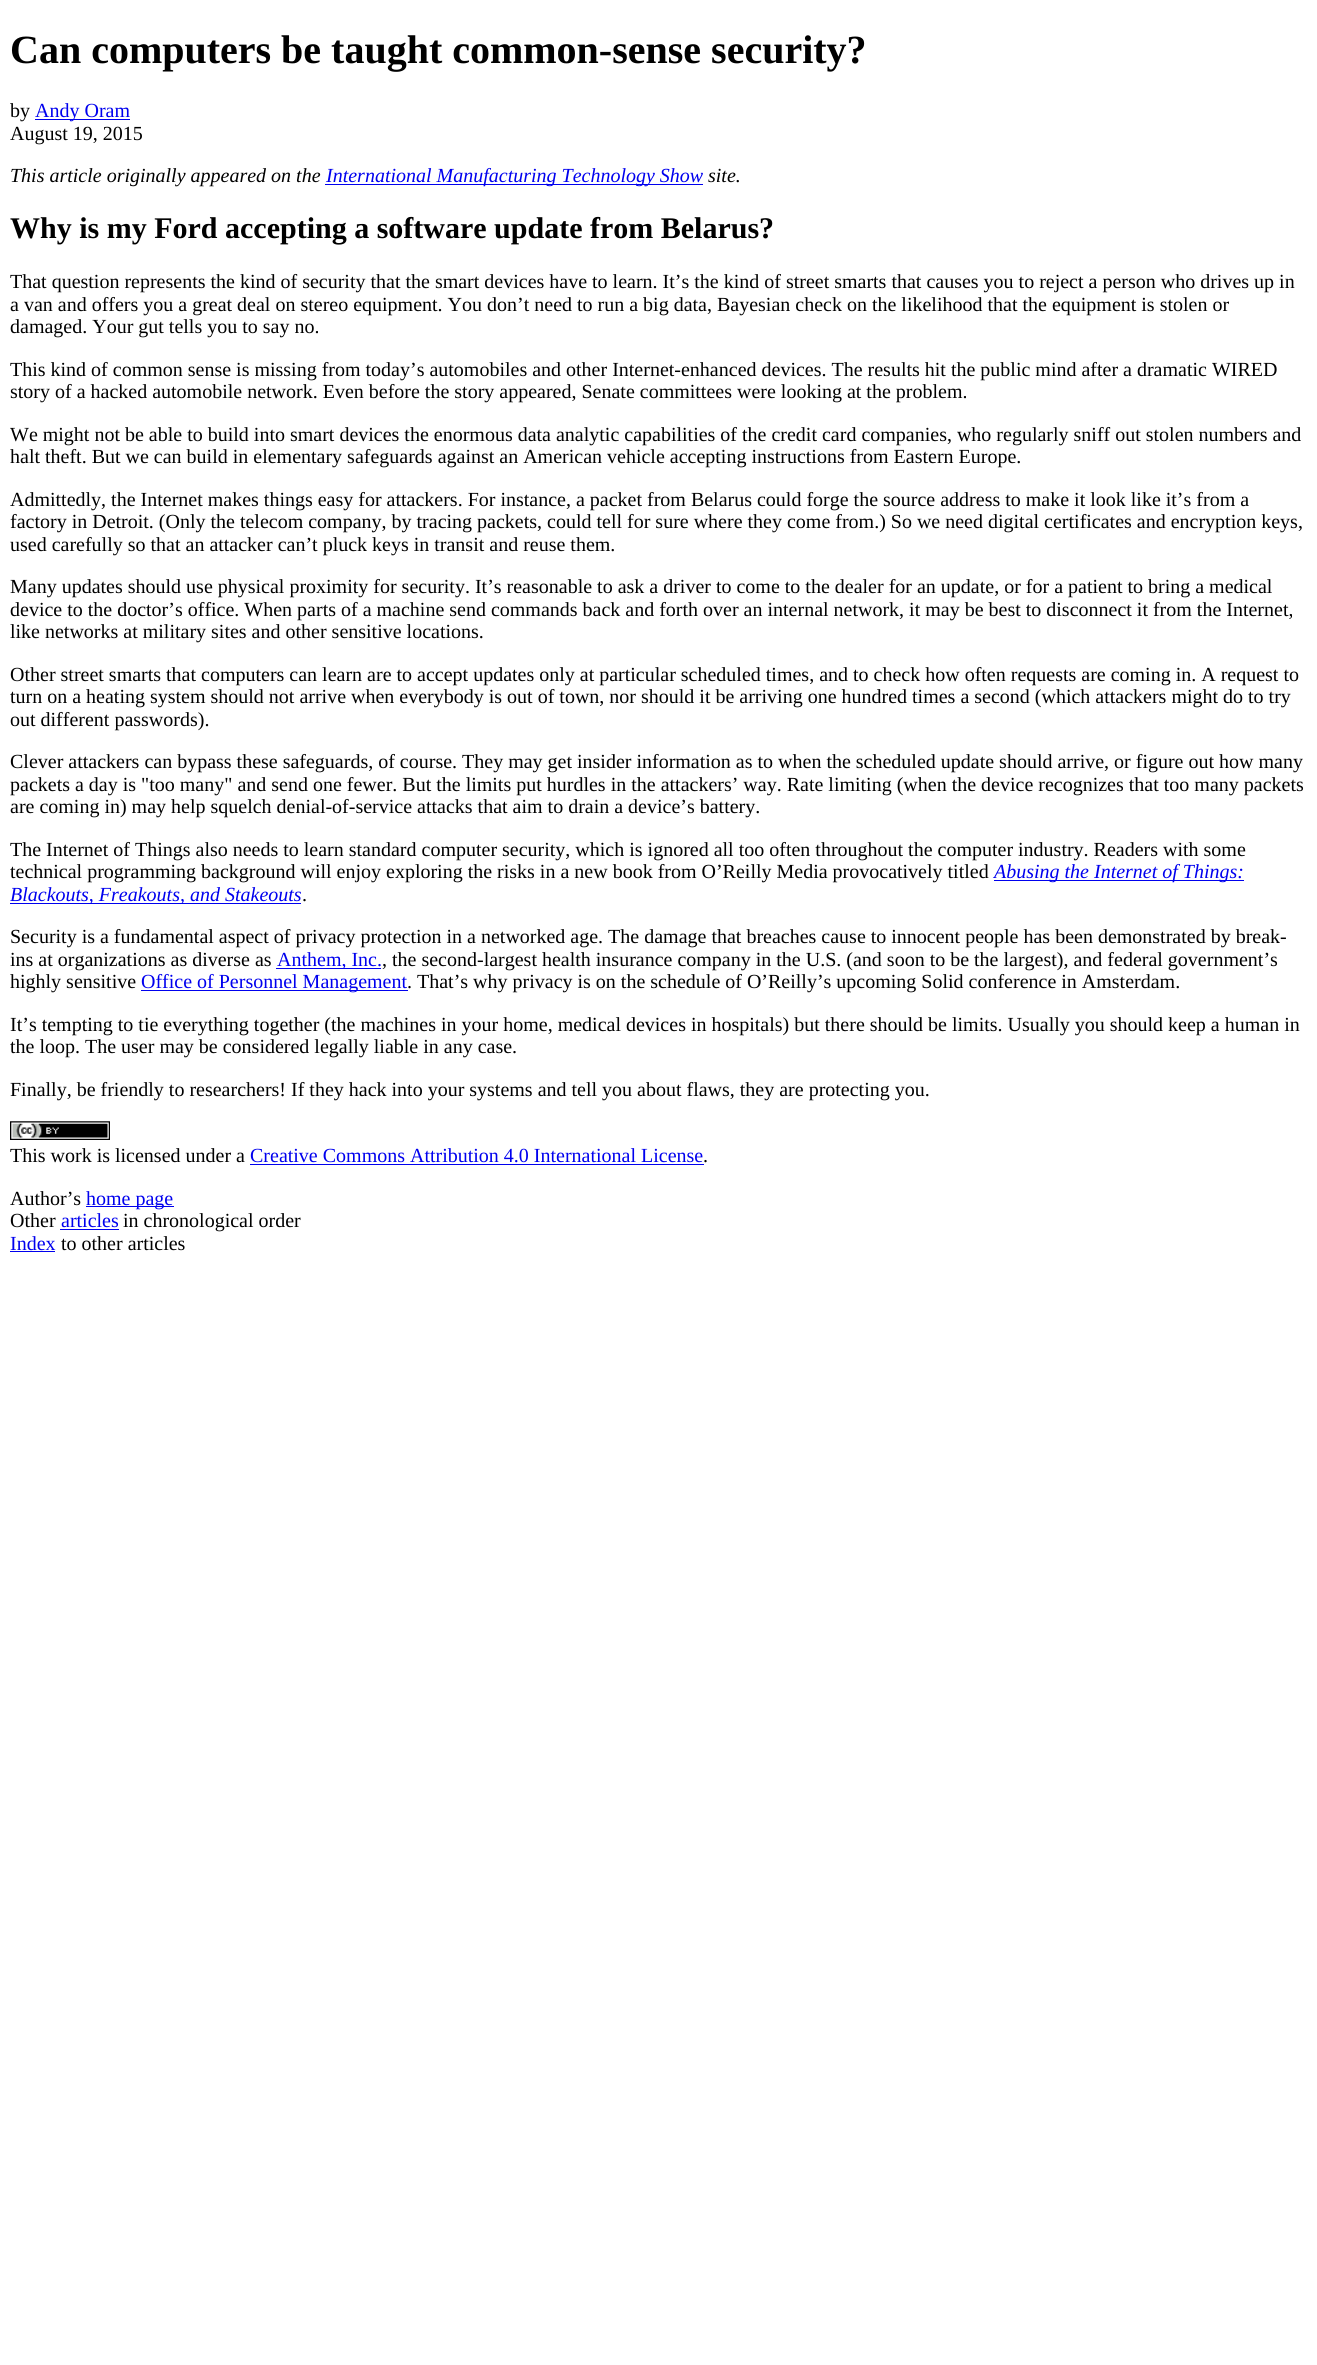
#include <cairo/cairo.h>
#include <math.h>
#include <stddef.h>


static void draw_image(cairo_t *cr, const char *path, double x, double y, double w, double h) {
  cairo_surface_t *image = cairo_image_surface_create_from_png(path);
  cairo_save(cr);
  cairo_set_source_surface(cr, image, x, y);
  cairo_rectangle(cr, x, y, w, h);
  cairo_fill(cr);
  cairo_restore(cr);
  cairo_surface_destroy(image);
}

static void draw(cairo_t *cr) {
  cairo_set_source_rgb(cr, 1, 1, 1);
  cairo_paint(cr);
  cairo_set_source_rgb(cr, 0, 0, 238 / 255.0);
  cairo_rectangle(cr, 35, 119, 95, 1);
  cairo_fill(cr);
  cairo_rectangle(cr, 325, 184, 378, 1);
  cairo_fill(cr);
  cairo_rectangle(cr, 994, 880, 250, 1);
  cairo_fill(cr);
  cairo_rectangle(cr, 10, 903, 291, 1);
  cairo_fill(cr);
  cairo_rectangle(cr, 276, 968, 105, 1);
  cairo_fill(cr);
  cairo_rectangle(cr, 141, 990, 267, 1);
  cairo_fill(cr);
  draw_image(cr, "images/1.png", 10, 1121, 100, 19);
  cairo_rectangle(cr, 250, 1164, 454, 1);
  cairo_fill(cr);
  cairo_rectangle(cr, 86, 1206, 88, 1);
  cairo_fill(cr);
  cairo_rectangle(cr, 60, 1229, 59, 1);
  cairo_fill(cr);
  cairo_rectangle(cr, 10, 1251, 45, 1);
  cairo_fill(cr);
  cairo_select_font_face(cr, "Liberation Serif", CAIRO_FONT_SLANT_NORMAL, CAIRO_FONT_WEIGHT_BOLD);
  cairo_set_font_size(cr, 40);
  cairo_set_source_rgb(cr, 0, 0, 0);
  cairo_move_to(cr, 10, 63);
  cairo_show_text(cr, "Can computers be taught common-sense security?");
  cairo_select_font_face(cr, "Liberation Serif", CAIRO_FONT_SLANT_NORMAL, CAIRO_FONT_WEIGHT_NORMAL);
  cairo_set_font_size(cr, 20);
  cairo_move_to(cr, 10, 117);
  cairo_show_text(cr, "by");
  cairo_set_source_rgb(cr, 0, 0, 238 / 255.0);
  cairo_move_to(cr, 35, 117);
  cairo_show_text(cr, "Andy Oram");
  cairo_set_source_rgb(cr, 0, 0, 0);
  cairo_move_to(cr, 10, 140);
  cairo_show_text(cr, "August 19, 2015");
  cairo_select_font_face(cr, "Liberation Serif", CAIRO_FONT_SLANT_ITALIC, CAIRO_FONT_WEIGHT_NORMAL);
  cairo_move_to(cr, 10, 182);
  cairo_show_text(cr, "This article originally appeared on the");
  cairo_set_source_rgb(cr, 0, 0, 238 / 255.0);
  cairo_move_to(cr, 326, 182);
  cairo_show_text(cr, "International Manufacturing Technology Show");
  cairo_set_source_rgb(cr, 0, 0, 0);
  cairo_move_to(cr, 708, 182);
  cairo_show_text(cr, "site.");
  cairo_select_font_face(cr, "Liberation Serif", CAIRO_FONT_SLANT_NORMAL, CAIRO_FONT_WEIGHT_BOLD);
  cairo_set_font_size(cr, 30);
  cairo_move_to(cr, 10, 238);
  cairo_show_text(cr, "Why is my Ford accepting a software update from Belarus?");
  cairo_select_font_face(cr, "Liberation Serif", CAIRO_FONT_SLANT_NORMAL, CAIRO_FONT_WEIGHT_NORMAL);
  cairo_set_font_size(cr, 20);
  cairo_move_to(cr, 10, 288);
  cairo_show_text(cr, "That question represents the kind of security that the smart devices have to learn. It’s the kind of street smarts that causes you to reject a person who drives up in");
  cairo_move_to(cr, 10, 311);
  cairo_show_text(cr, "a van and offers you a great deal on stereo equipment. You don’t need to run a big data, Bayesian check on the likelihood that the equipment is stolen or");
  cairo_move_to(cr, 10, 333);
  cairo_show_text(cr, "damaged. Your gut tells you to say no.");
  cairo_move_to(cr, 10, 376);
  cairo_show_text(cr, "This kind of common sense is missing from today’s automobiles and other Internet-enhanced devices. The results hit the public mind after a dramatic WIRED");
  cairo_move_to(cr, 10, 398);
  cairo_show_text(cr, "story of a hacked automobile network. Even before the story appeared, Senate committees were looking at the problem.");
  cairo_move_to(cr, 10, 441);
  cairo_show_text(cr, "We might not be able to build into smart devices the enormous data analytic capabilities of the credit card companies, who regularly sniff out stolen numbers and");
  cairo_move_to(cr, 10, 463);
  cairo_show_text(cr, "halt theft. But we can build in elementary safeguards against an American vehicle accepting instructions from Eastern Europe.");
  cairo_move_to(cr, 10, 506);
  cairo_show_text(cr, "Admittedly, the Internet makes things easy for attackers. For instance, a packet from Belarus could forge the source address to make it look like it’s from a");
  cairo_move_to(cr, 10, 528);
  cairo_show_text(cr, "factory in Detroit. (Only the telecom company, by tracing packets, could tell for sure where they come from.) So we need digital certificates and encryption keys,");
  cairo_move_to(cr, 10, 551);
  cairo_show_text(cr, "used carefully so that an attacker can’t pluck keys in transit and reuse them.");
  cairo_move_to(cr, 10, 593);
  cairo_show_text(cr, "Many updates should use physical proximity for security. It’s reasonable to ask a driver to come to the dealer for an update, or for a patient to bring a medical");
  cairo_move_to(cr, 10, 616);
  cairo_show_text(cr, "device to the doctor’s office. When parts of a machine send commands back and forth over an internal network, it may be best to disconnect it from the Internet,");
  cairo_move_to(cr, 10, 638);
  cairo_show_text(cr, "like networks at military sites and other sensitive locations.");
  cairo_move_to(cr, 10, 681);
  cairo_show_text(cr, "Other street smarts that computers can learn are to accept updates only at particular scheduled times, and to check how often requests are coming in. A request to");
  cairo_move_to(cr, 10, 703);
  cairo_show_text(cr, "turn on a heating system should not arrive when everybody is out of town, nor should it be arriving one hundred times a second (which attackers might do to try");
  cairo_move_to(cr, 10, 726);
  cairo_show_text(cr, "out different passwords).");
  cairo_move_to(cr, 10, 768);
  cairo_show_text(cr, "Clever attackers can bypass these safeguards, of course. They may get insider information as to when the scheduled update should arrive, or figure out how many");
  cairo_move_to(cr, 10, 791);
  cairo_show_text(cr, "packets a day is \"too many\" and send one fewer. But the limits put hurdles in the attackers’ way. Rate limiting (when the device recognizes that too many packets");
  cairo_move_to(cr, 10, 813);
  cairo_show_text(cr, "are coming in) may help squelch denial-of-service attacks that aim to drain a device’s battery.");
  cairo_move_to(cr, 10, 856);
  cairo_show_text(cr, "The Internet of Things also needs to learn standard computer security, which is ignored all too often throughout the computer industry. Readers with some");
  cairo_move_to(cr, 10, 878);
  cairo_show_text(cr, "technical programming background will enjoy exploring the risks in a new book from O’Reilly Media provocatively titled");
  cairo_select_font_face(cr, "Liberation Serif", CAIRO_FONT_SLANT_ITALIC, CAIRO_FONT_WEIGHT_NORMAL);
  cairo_set_source_rgb(cr, 0, 0, 238 / 255.0);
  cairo_move_to(cr, 994, 878);
  cairo_show_text(cr, "Abusing the Internet of Things:");
  cairo_move_to(cr, 10, 901);
  cairo_show_text(cr, "Blackouts, Freakouts, and Stakeouts");
  cairo_select_font_face(cr, "Liberation Serif", CAIRO_FONT_SLANT_NORMAL, CAIRO_FONT_WEIGHT_NORMAL);
  cairo_set_source_rgb(cr, 0, 0, 0);
  cairo_move_to(cr, 302, 901);
  cairo_show_text(cr, ".");
  cairo_move_to(cr, 10, 943);
  cairo_show_text(cr, "Security is a fundamental aspect of privacy protection in a networked age. The damage that breaches cause to innocent people has been demonstrated by break-");
  cairo_move_to(cr, 10, 966);
  cairo_show_text(cr, "ins at organizations as diverse as");
  cairo_set_source_rgb(cr, 0, 0, 238 / 255.0);
  cairo_move_to(cr, 277, 966);
  cairo_show_text(cr, "Anthem, Inc.");
  cairo_set_source_rgb(cr, 0, 0, 0);
  cairo_move_to(cr, 382, 966);
  cairo_show_text(cr, ", the second-largest health insurance company in the U.S. (and soon to be the largest), and federal government’s");
  cairo_move_to(cr, 10, 988);
  cairo_show_text(cr, "highly sensitive");
  cairo_set_source_rgb(cr, 0, 0, 238 / 255.0);
  cairo_move_to(cr, 141, 988);
  cairo_show_text(cr, "Office of Personnel Management");
  cairo_set_source_rgb(cr, 0, 0, 0);
  cairo_move_to(cr, 407, 988);
  cairo_show_text(cr, ". That’s why privacy is on the schedule of O’Reilly’s upcoming Solid conference in Amsterdam.");
  cairo_move_to(cr, 10, 1031);
  cairo_show_text(cr, "It’s tempting to tie everything together (the machines in your home, medical devices in hospitals) but there should be limits. Usually you should keep a human in");
  cairo_move_to(cr, 10, 1053);
  cairo_show_text(cr, "the loop. The user may be considered legally liable in any case.");
  cairo_move_to(cr, 10, 1096);
  cairo_show_text(cr, "Finally, be friendly to researchers! If they hack into your systems and tell you about flaws, they are protecting you.");
  cairo_move_to(cr, 10, 1162);
  cairo_show_text(cr, "This work is licensed under a");
  cairo_set_source_rgb(cr, 0, 0, 238 / 255.0);
  cairo_move_to(cr, 250, 1162);
  cairo_show_text(cr, "Creative Commons Attribution 4.0 International License");
  cairo_set_source_rgb(cr, 0, 0, 0);
  cairo_move_to(cr, 703, 1162);
  cairo_show_text(cr, ".");
  cairo_move_to(cr, 10, 1205);
  cairo_show_text(cr, "Author’s");
  cairo_set_source_rgb(cr, 0, 0, 238 / 255.0);
  cairo_move_to(cr, 86, 1205);
  cairo_show_text(cr, "home page");
  cairo_set_source_rgb(cr, 0, 0, 0);
  cairo_move_to(cr, 10, 1227);
  cairo_show_text(cr, "Other");
  cairo_set_source_rgb(cr, 0, 0, 238 / 255.0);
  cairo_move_to(cr, 61, 1227);
  cairo_show_text(cr, "articles");
  cairo_set_source_rgb(cr, 0, 0, 0);
  cairo_move_to(cr, 123, 1227);
  cairo_show_text(cr, "in chronological order");
  cairo_set_source_rgb(cr, 0, 0, 238 / 255.0);
  cairo_move_to(cr, 10, 1250);
  cairo_show_text(cr, "Index");
  cairo_set_source_rgb(cr, 0, 0, 0);
  cairo_move_to(cr, 61, 1250);
  cairo_show_text(cr, "to other articles");
}

int main(void) {
  cairo_surface_t *surface = cairo_image_surface_create(CAIRO_FORMAT_RGB24, 1317, 2365);
  cairo_t *cr = cairo_create(surface);
  cairo_font_options_t *options = cairo_font_options_create();
  cairo_font_options_set_hint_metrics(options, CAIRO_HINT_METRICS_OFF);
  cairo_font_options_set_hint_style(options, CAIRO_HINT_STYLE_NONE);
  cairo_set_font_options(cr, options);
  cairo_set_miter_limit(cr, 4);
  draw(cr);
  cairo_surface_write_to_png(surface, "out.png");
  cairo_font_options_destroy(options);
  cairo_destroy(cr);
  cairo_surface_destroy(surface);
  return 0;
}
